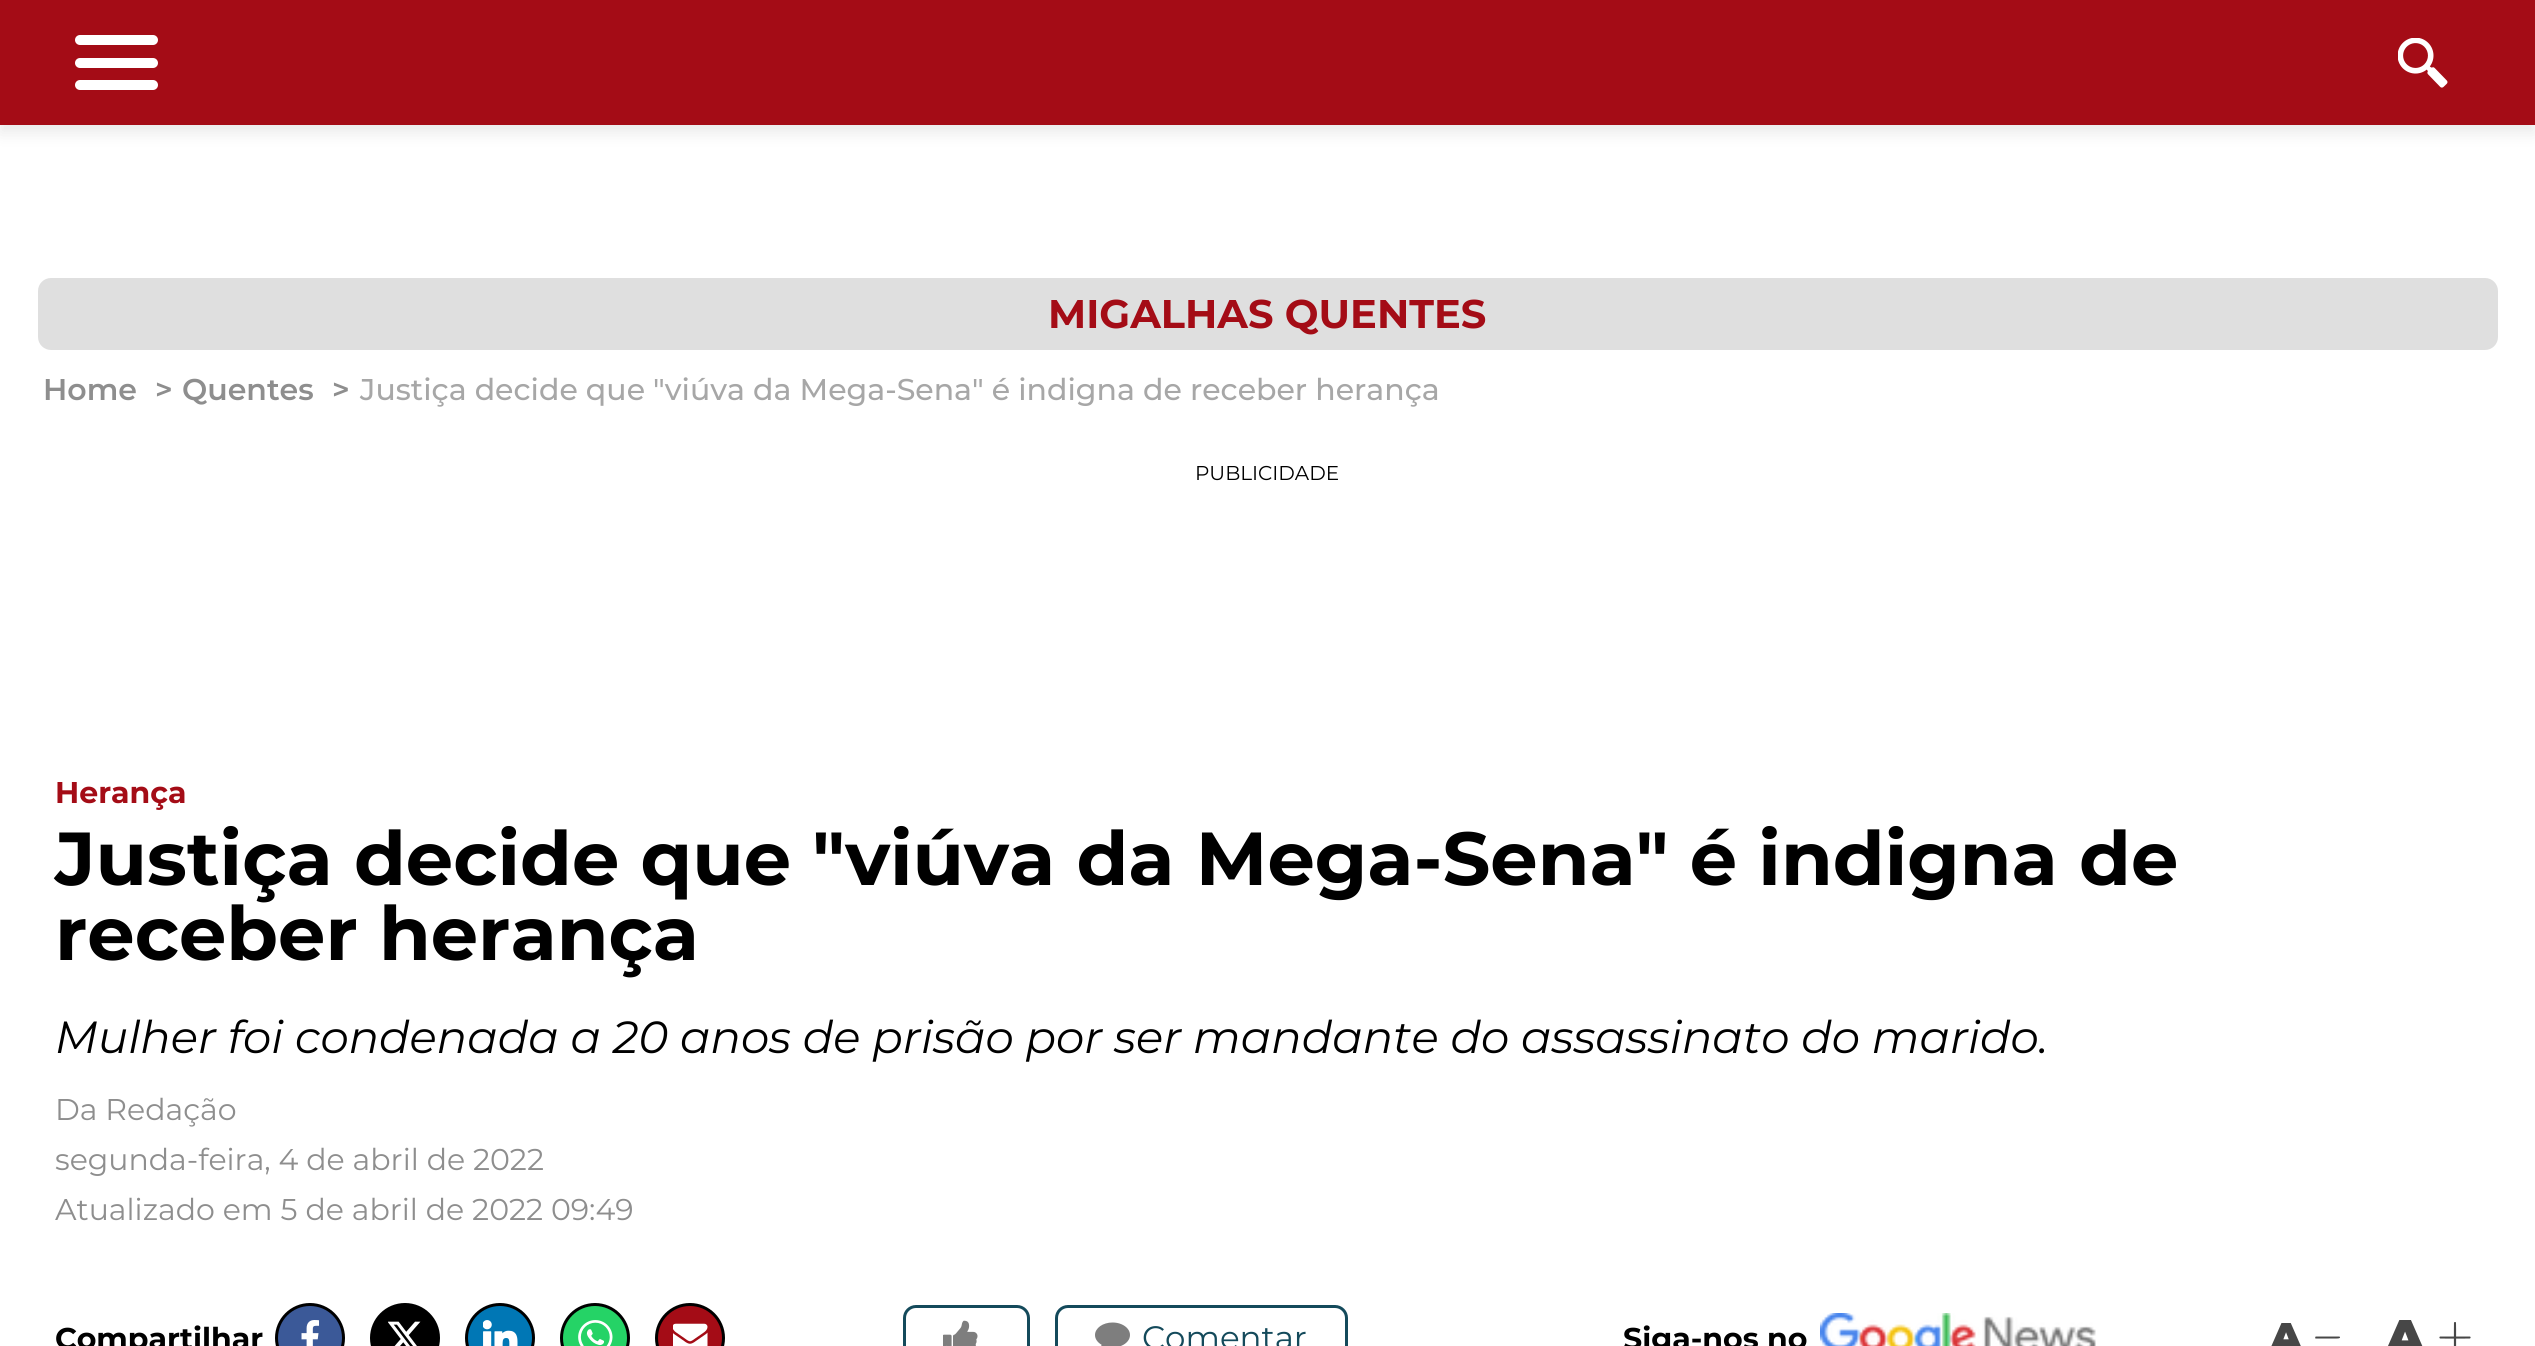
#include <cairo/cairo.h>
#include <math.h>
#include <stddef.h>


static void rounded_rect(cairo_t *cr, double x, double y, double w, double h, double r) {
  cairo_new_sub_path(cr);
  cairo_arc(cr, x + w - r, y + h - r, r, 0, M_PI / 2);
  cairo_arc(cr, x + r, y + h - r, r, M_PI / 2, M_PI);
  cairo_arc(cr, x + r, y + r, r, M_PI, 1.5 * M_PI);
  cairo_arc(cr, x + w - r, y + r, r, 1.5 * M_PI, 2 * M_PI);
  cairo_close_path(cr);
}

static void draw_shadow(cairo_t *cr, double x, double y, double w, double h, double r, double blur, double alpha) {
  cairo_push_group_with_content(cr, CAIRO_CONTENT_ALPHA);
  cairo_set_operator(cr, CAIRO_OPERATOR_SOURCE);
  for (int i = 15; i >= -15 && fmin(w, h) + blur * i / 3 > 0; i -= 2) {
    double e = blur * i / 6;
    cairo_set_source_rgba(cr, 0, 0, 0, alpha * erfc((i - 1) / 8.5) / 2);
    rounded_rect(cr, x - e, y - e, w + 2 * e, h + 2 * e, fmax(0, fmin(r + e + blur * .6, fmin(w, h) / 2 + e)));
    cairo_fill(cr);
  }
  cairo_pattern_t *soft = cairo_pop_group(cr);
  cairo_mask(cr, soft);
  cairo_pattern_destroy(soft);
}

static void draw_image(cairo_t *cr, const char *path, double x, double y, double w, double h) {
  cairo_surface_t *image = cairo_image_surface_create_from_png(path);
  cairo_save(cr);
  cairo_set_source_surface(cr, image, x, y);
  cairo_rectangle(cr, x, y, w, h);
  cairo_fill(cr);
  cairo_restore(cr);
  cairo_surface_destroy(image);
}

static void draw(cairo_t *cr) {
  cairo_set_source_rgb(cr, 1, 1, 1);
  cairo_paint(cr);
  cairo_set_source_rgb(cr, 122 / 255.0, 122 / 255.0, 122 / 255.0);
  draw_shadow(cr, 0, 8, 2535, 125, 0, 7.5, 0.16);
  cairo_set_source_rgb(cr, 164 / 255.0, 12 / 255.0, 22 / 255.0);
  cairo_rectangle(cr, 0, 0, 2535, 125);
  cairo_fill(cr);
  cairo_set_source_rgb(cr, 1, 1, 1);
  rounded_rect(cr, 75, 35, 83, 10, 5);
  cairo_fill(cr);
  rounded_rect(cr, 75, 58, 83, 10, 5);
  cairo_fill(cr);
  rounded_rect(cr, 75, 80, 83, 10, 5);
  cairo_fill(cr);
  draw_image(cr, "images/1.png", 2398, 38, 50, 50);
  cairo_set_source_rgb(cr, 223 / 255.0, 223 / 255.0, 223 / 255.0);
  rounded_rect(cr, 38, 278, 2460, 72, 13);
  cairo_fill(cr);
  cairo_set_source_rgb(cr, 59 / 255.0, 89 / 255.0, 152 / 255.0);
  cairo_arc(cr, 310, 1338, 33.5, 0, 2 * M_PI);
  cairo_fill_preserve(cr);
  cairo_set_source_rgb(cr, 0, 0, 0);
  cairo_set_line_width(cr, 3);
  cairo_stroke(cr);
  draw_image(cr, "images/2.png", 301, 1320, 19, 26);
  cairo_arc(cr, 405, 1338, 33.5, 0, 2 * M_PI);
  cairo_fill_preserve(cr);
  cairo_stroke(cr);
  draw_image(cr, "images/3.png", 388, 1321, 33, 25);
  cairo_set_source_rgb(cr, 0, 119 / 255.0, 181 / 255.0);
  cairo_arc(cr, 500, 1338, 33.5, 0, 2 * M_PI);
  cairo_fill_preserve(cr);
  cairo_set_source_rgb(cr, 0, 0, 0);
  cairo_stroke(cr);
  draw_image(cr, "images/4.png", 483, 1320, 35, 26);
  cairo_set_source_rgb(cr, 37 / 255.0, 211 / 255.0, 102 / 255.0);
  cairo_arc(cr, 595, 1338, 33.5, 0, 2 * M_PI);
  cairo_fill_preserve(cr);
  cairo_set_source_rgb(cr, 0, 0, 0);
  cairo_stroke(cr);
  draw_image(cr, "images/5.png", 578, 1320, 35, 26);
  cairo_set_source_rgb(cr, 164 / 255.0, 12 / 255.0, 22 / 255.0);
  cairo_arc(cr, 690, 1338, 33.5, 0, 2 * M_PI);
  cairo_fill_preserve(cr);
  cairo_set_source_rgb(cr, 0, 0, 0);
  cairo_stroke(cr);
  draw_image(cr, "images/6.png", 673, 1323, 35, 23);
  rounded_rect(cr, 904.5, 1306.5, 124, 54, 11.5);
  cairo_set_source_rgb(cr, 20 / 255.0, 74 / 255.0, 91 / 255.0);
  cairo_stroke(cr);
  draw_image(cr, "images/7.png", 943, 1320, 35, 26);
  rounded_rect(cr, 1056.5, 1306.5, 290, 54, 11.5);
  cairo_stroke(cr);
  draw_image(cr, "images/8.png", 1095, 1322, 35, 24);
  draw_image(cr, "images/9.png", 1820, 1313, 276, 33);
  cairo_set_source_rgb(cr, 71 / 255.0, 71 / 255.0, 71 / 255.0);
  cairo_new_path(cr);
  cairo_move_to(cr, 2315.5, 1337);
  cairo_curve_to(cr, 2315, 1337.5, 2315, 1338, 2315.5, 1338.5);
  cairo_line_to(cr, 2334.5, 1338.5);
  cairo_curve_to(cr, 2335, 1338.5, 2342, 1339, 2339.5, 1336.5);
  cairo_line_to(cr, 2315.5, 1336.5);
  cairo_close_path(cr);
  cairo_fill(cr);
  draw_image(cr, "images/10.png", 2439, 1322, 32, 24);
  cairo_select_font_face(cr, "Montserrat", CAIRO_FONT_SLANT_NORMAL, CAIRO_FONT_WEIGHT_BOLD);
  cairo_set_font_size(cr, 40);
  cairo_set_source_rgb(cr, 164 / 255.0, 12 / 255.0, 22 / 255.0);
  cairo_move_to(cr, 1048, 328);
  cairo_show_text(cr, "MIGALHAS QUENTES");
  cairo_select_font_face(cr, "Montserrat SemiBold", CAIRO_FONT_SLANT_NORMAL, CAIRO_FONT_WEIGHT_NORMAL);
  cairo_set_font_size(cr, 30);
  cairo_set_source_rgb(cr, 142 / 255.0, 142 / 255.0, 142 / 255.0);
  cairo_move_to(cr, 43, 400);
  cairo_show_text(cr, "Home");
  cairo_move_to(cr, 155, 400);
  cairo_show_text(cr, ">");
  cairo_move_to(cr, 182, 400);
  cairo_show_text(cr, "Quentes");
  cairo_move_to(cr, 332, 400);
  cairo_show_text(cr, ">");
  cairo_select_font_face(cr, "Montserrat Medium", CAIRO_FONT_SLANT_NORMAL, CAIRO_FONT_WEIGHT_NORMAL);
  cairo_set_source_rgb(cr, 167 / 255.0, 167 / 255.0, 167 / 255.0);
  cairo_move_to(cr, 360, 400);
  cairo_show_text(cr, "Justiça decide que \"viúva da Mega-Sena\" é indigna de receber herança");
  cairo_select_font_face(cr, "Montserrat", CAIRO_FONT_SLANT_NORMAL, CAIRO_FONT_WEIGHT_NORMAL);
  cairo_set_font_size(cr, 20);
  cairo_set_source_rgb(cr, 0, 0, 0);
  cairo_move_to(cr, 1195, 480);
  cairo_show_text(cr, "PUBLICIDADE");
  cairo_select_font_face(cr, "Montserrat", CAIRO_FONT_SLANT_NORMAL, CAIRO_FONT_WEIGHT_BOLD);
  cairo_set_font_size(cr, 30);
  cairo_set_source_rgb(cr, 164 / 255.0, 12 / 255.0, 22 / 255.0);
  cairo_move_to(cr, 55, 803);
  cairo_show_text(cr, "Herança");
  cairo_set_font_size(cr, 75);
  cairo_set_source_rgb(cr, 0, 0, 0);
  cairo_move_to(cr, 55, 885);
  cairo_show_text(cr, "Justiça decide que \"viúva da Mega-Sena\" é indigna de");
  cairo_move_to(cr, 55, 960);
  cairo_show_text(cr, "receber herança");
  cairo_select_font_face(cr, "Montserrat", CAIRO_FONT_SLANT_ITALIC, CAIRO_FONT_WEIGHT_NORMAL);
  cairo_set_font_size(cr, 45);
  cairo_move_to(cr, 55, 1053);
  cairo_show_text(cr, "Mulher foi condenada a 20 anos de prisão por ser mandante do assassinato do marido.");
  cairo_select_font_face(cr, "Montserrat", CAIRO_FONT_SLANT_NORMAL, CAIRO_FONT_WEIGHT_NORMAL);
  cairo_set_font_size(cr, 30);
  cairo_set_source_rgb(cr, 142 / 255.0, 142 / 255.0, 142 / 255.0);
  cairo_move_to(cr, 55, 1120);
  cairo_show_text(cr, "Da Redação");
  cairo_move_to(cr, 55, 1170);
  cairo_show_text(cr, "segunda-feira, 4 de abril de 2022");
  cairo_move_to(cr, 55, 1220);
  cairo_show_text(cr, "Atualizado em 5 de abril de 2022 09:49");
  cairo_select_font_face(cr, "Montserrat", CAIRO_FONT_SLANT_NORMAL, CAIRO_FONT_WEIGHT_BOLD);
  cairo_set_source_rgb(cr, 0, 0, 0);
  cairo_move_to(cr, 55, 1349);
  cairo_show_text(cr, "Compartilhar");
  cairo_select_font_face(cr, "Montserrat", CAIRO_FONT_SLANT_NORMAL, CAIRO_FONT_WEIGHT_NORMAL);
  cairo_set_font_size(cr, 32.5);
  cairo_set_source_rgb(cr, 20 / 255.0, 74 / 255.0, 91 / 255.0);
  cairo_move_to(cr, 1142, 1349);
  cairo_show_text(cr, "Comentar");
  cairo_select_font_face(cr, "Montserrat", CAIRO_FONT_SLANT_NORMAL, CAIRO_FONT_WEIGHT_BOLD);
  cairo_set_font_size(cr, 30);
  cairo_set_source_rgb(cr, 0, 0, 0);
  cairo_move_to(cr, 1623, 1349);
  cairo_show_text(cr, "Siga-nos no");
  cairo_select_font_face(cr, "Montserrat Black", CAIRO_FONT_SLANT_NORMAL, CAIRO_FONT_WEIGHT_NORMAL);
  cairo_set_font_size(cr, 40);
  cairo_set_source_rgb(cr, 71 / 255.0, 71 / 255.0, 71 / 255.0);
  cairo_move_to(cr, 2270, 1351);
  cairo_show_text(cr, "A");
  cairo_set_font_size(cr, 50);
  cairo_move_to(cr, 2385, 1355);
  cairo_show_text(cr, "A");
}

int main(void) {
  cairo_surface_t *surface = cairo_image_surface_create(CAIRO_FORMAT_RGB24, 2535, 1346);
  cairo_t *cr = cairo_create(surface);
  cairo_font_options_t *options = cairo_font_options_create();
  cairo_font_options_set_hint_metrics(options, CAIRO_HINT_METRICS_OFF);
  cairo_font_options_set_hint_style(options, CAIRO_HINT_STYLE_NONE);
  cairo_set_font_options(cr, options);
  cairo_set_miter_limit(cr, 4);
  draw(cr);
  cairo_surface_write_to_png(surface, "out.png");
  cairo_font_options_destroy(options);
  cairo_destroy(cr);
  cairo_surface_destroy(surface);
  return 0;
}
